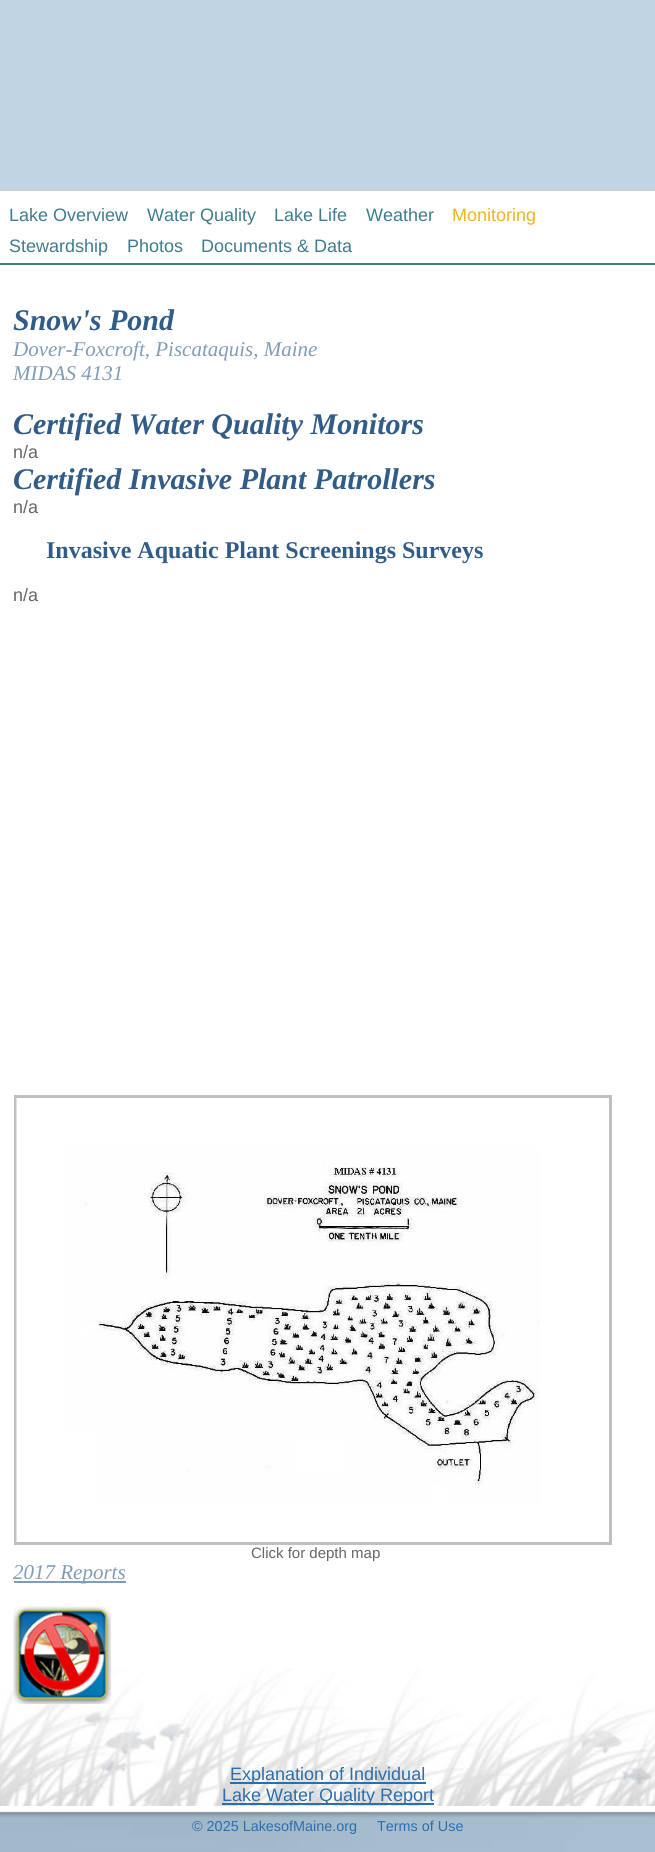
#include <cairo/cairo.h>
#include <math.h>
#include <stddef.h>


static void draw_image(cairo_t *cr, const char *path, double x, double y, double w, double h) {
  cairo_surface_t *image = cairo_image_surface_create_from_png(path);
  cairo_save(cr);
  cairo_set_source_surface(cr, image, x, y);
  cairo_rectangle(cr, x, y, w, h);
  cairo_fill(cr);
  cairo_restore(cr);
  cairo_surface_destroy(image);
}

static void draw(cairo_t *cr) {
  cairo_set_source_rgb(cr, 193 / 255.0, 212 / 255.0, 227 / 255.0);
  cairo_paint(cr);
  draw_image(cr, "images/1.png", 0, 1811, 655, 41);
  cairo_set_source_rgb(cr, 1, 1, 1);
  cairo_rectangle(cr, 0, 191, 655, 1477);
  cairo_fill(cr);
  draw_image(cr, "images/2.png", 0, 1668, 655, 138);
  cairo_set_source_rgb(cr, 62 / 255.0, 125 / 255.0, 143 / 255.0);
  cairo_rectangle(cr, 0, 263, 655, 2);
  cairo_fill(cr);
  cairo_rectangle(cr, 15.5, 1096.5, 595, 447);
  cairo_set_source_rgb(cr, 192 / 255.0, 192 / 255.0, 192 / 255.0);
  cairo_set_line_width(cr, 3);
  cairo_stroke(cr);
  draw_image(cr, "images/3.png", 16, 1098, 524, 444);
  cairo_set_source_rgb(cr, 129 / 255.0, 156 / 255.0, 183 / 255.0);
  cairo_rectangle(cr, 14, 1581, 112, 2);
  cairo_fill(cr);
  draw_image(cr, "images/4.png", 13, 1606, 98, 98);
  cairo_set_source_rgb(cr, 43 / 255.0, 111 / 255.0, 174 / 255.0);
  cairo_rectangle(cr, 230, 1782, 196, 2);
  cairo_fill(cr);
  cairo_rectangle(cr, 222, 1803, 212, 2);
  cairo_fill(cr);
  draw_image(cr, "images/5.png", 0, 1806, 655, 12);
  cairo_select_font_face(cr, "Liberation Sans", CAIRO_FONT_SLANT_NORMAL, CAIRO_FONT_WEIGHT_NORMAL);
  cairo_set_font_size(cr, 18);
  cairo_set_source_rgb(cr, 62 / 255.0, 125 / 255.0, 143 / 255.0);
  cairo_move_to(cr, 9, 221);
  cairo_show_text(cr, "Lake Overview");
  cairo_move_to(cr, 147, 221);
  cairo_show_text(cr, "Water Quality");
  cairo_move_to(cr, 274, 221);
  cairo_show_text(cr, "Lake Life");
  cairo_move_to(cr, 366, 221);
  cairo_show_text(cr, "Weather");
  cairo_set_source_rgb(cr, 235 / 255.0, 180 / 255.0, 33 / 255.0);
  cairo_move_to(cr, 452, 221);
  cairo_show_text(cr, "Monitoring");
  cairo_set_source_rgb(cr, 62 / 255.0, 125 / 255.0, 143 / 255.0);
  cairo_move_to(cr, 9, 252);
  cairo_show_text(cr, "Stewardship");
  cairo_move_to(cr, 127, 252);
  cairo_show_text(cr, "Photos");
  cairo_move_to(cr, 201, 252);
  cairo_show_text(cr, "Documents & Data");
  cairo_select_font_face(cr, "Liberation Serif", CAIRO_FONT_SLANT_ITALIC, CAIRO_FONT_WEIGHT_BOLD);
  cairo_set_font_size(cr, 30);
  cairo_set_source_rgb(cr, 49 / 255.0, 92 / 255.0, 135 / 255.0);
  cairo_move_to(cr, 13, 330);
  cairo_show_text(cr, "Snow's Pond");
  cairo_select_font_face(cr, "Liberation Serif", CAIRO_FONT_SLANT_ITALIC, CAIRO_FONT_WEIGHT_NORMAL);
  cairo_set_font_size(cr, 21);
  cairo_set_source_rgb(cr, 129 / 255.0, 156 / 255.0, 183 / 255.0);
  cairo_move_to(cr, 13, 356);
  cairo_show_text(cr, "Dover-Foxcroft, Piscataquis, Maine");
  cairo_move_to(cr, 13, 380);
  cairo_show_text(cr, "MIDAS 4131");
  cairo_select_font_face(cr, "Liberation Serif", CAIRO_FONT_SLANT_ITALIC, CAIRO_FONT_WEIGHT_BOLD);
  cairo_set_font_size(cr, 30);
  cairo_set_source_rgb(cr, 49 / 255.0, 92 / 255.0, 135 / 255.0);
  cairo_move_to(cr, 13, 434);
  cairo_show_text(cr, "Certified Water Quality Monitors");
  cairo_select_font_face(cr, "Liberation Sans", CAIRO_FONT_SLANT_NORMAL, CAIRO_FONT_WEIGHT_NORMAL);
  cairo_set_font_size(cr, 18);
  cairo_set_source_rgb(cr, 102 / 255.0, 102 / 255.0, 102 / 255.0);
  cairo_move_to(cr, 13, 458);
  cairo_show_text(cr, "n/a");
  cairo_select_font_face(cr, "Liberation Serif", CAIRO_FONT_SLANT_ITALIC, CAIRO_FONT_WEIGHT_BOLD);
  cairo_set_font_size(cr, 30);
  cairo_set_source_rgb(cr, 49 / 255.0, 92 / 255.0, 135 / 255.0);
  cairo_move_to(cr, 13, 489);
  cairo_show_text(cr, "Certified Invasive Plant Patrollers");
  cairo_select_font_face(cr, "Liberation Sans", CAIRO_FONT_SLANT_NORMAL, CAIRO_FONT_WEIGHT_NORMAL);
  cairo_set_font_size(cr, 18);
  cairo_set_source_rgb(cr, 102 / 255.0, 102 / 255.0, 102 / 255.0);
  cairo_move_to(cr, 13, 513);
  cairo_show_text(cr, "n/a");
  cairo_select_font_face(cr, "Liberation Serif", CAIRO_FONT_SLANT_NORMAL, CAIRO_FONT_WEIGHT_BOLD);
  cairo_set_font_size(cr, 24);
  cairo_set_source_rgb(cr, 49 / 255.0, 92 / 255.0, 135 / 255.0);
  cairo_move_to(cr, 46, 558);
  cairo_show_text(cr, "Invasive Aquatic Plant Screenings Surveys");
  cairo_select_font_face(cr, "Liberation Sans", CAIRO_FONT_SLANT_NORMAL, CAIRO_FONT_WEIGHT_NORMAL);
  cairo_set_font_size(cr, 18);
  cairo_set_source_rgb(cr, 102 / 255.0, 102 / 255.0, 102 / 255.0);
  cairo_move_to(cr, 13, 601);
  cairo_show_text(cr, "n/a");
  cairo_set_font_size(cr, 15);
  cairo_move_to(cr, 251, 1558);
  cairo_show_text(cr, "Click for depth map");
  cairo_select_font_face(cr, "Liberation Serif", CAIRO_FONT_SLANT_ITALIC, CAIRO_FONT_WEIGHT_NORMAL);
  cairo_set_font_size(cr, 21);
  cairo_set_source_rgb(cr, 129 / 255.0, 156 / 255.0, 183 / 255.0);
  cairo_move_to(cr, 13, 1579);
  cairo_show_text(cr, "2017 Reports");
  cairo_select_font_face(cr, "Liberation Sans", CAIRO_FONT_SLANT_NORMAL, CAIRO_FONT_WEIGHT_NORMAL);
  cairo_set_font_size(cr, 18);
  cairo_set_source_rgb(cr, 43 / 255.0, 111 / 255.0, 174 / 255.0);
  cairo_move_to(cr, 230, 1780);
  cairo_show_text(cr, "Explanation of Individual");
  cairo_move_to(cr, 222, 1801);
  cairo_show_text(cr, "Lake Water Quality Report");
  cairo_set_font_size(cr, 14.4);
  cairo_move_to(cr, 192, 1831);
  cairo_show_text(cr, "© 2025 LakesofMaine.org");
  cairo_move_to(cr, 377, 1831);
  cairo_show_text(cr, "Terms of Use");
}

int main(void) {
  cairo_surface_t *surface = cairo_image_surface_create(CAIRO_FORMAT_RGB24, 655, 1852);
  cairo_t *cr = cairo_create(surface);
  cairo_font_options_t *options = cairo_font_options_create();
  cairo_font_options_set_hint_metrics(options, CAIRO_HINT_METRICS_OFF);
  cairo_font_options_set_hint_style(options, CAIRO_HINT_STYLE_NONE);
  cairo_set_font_options(cr, options);
  cairo_set_miter_limit(cr, 4);
  draw(cr);
  cairo_surface_write_to_png(surface, "out.png");
  cairo_font_options_destroy(options);
  cairo_destroy(cr);
  cairo_surface_destroy(surface);
  return 0;
}
